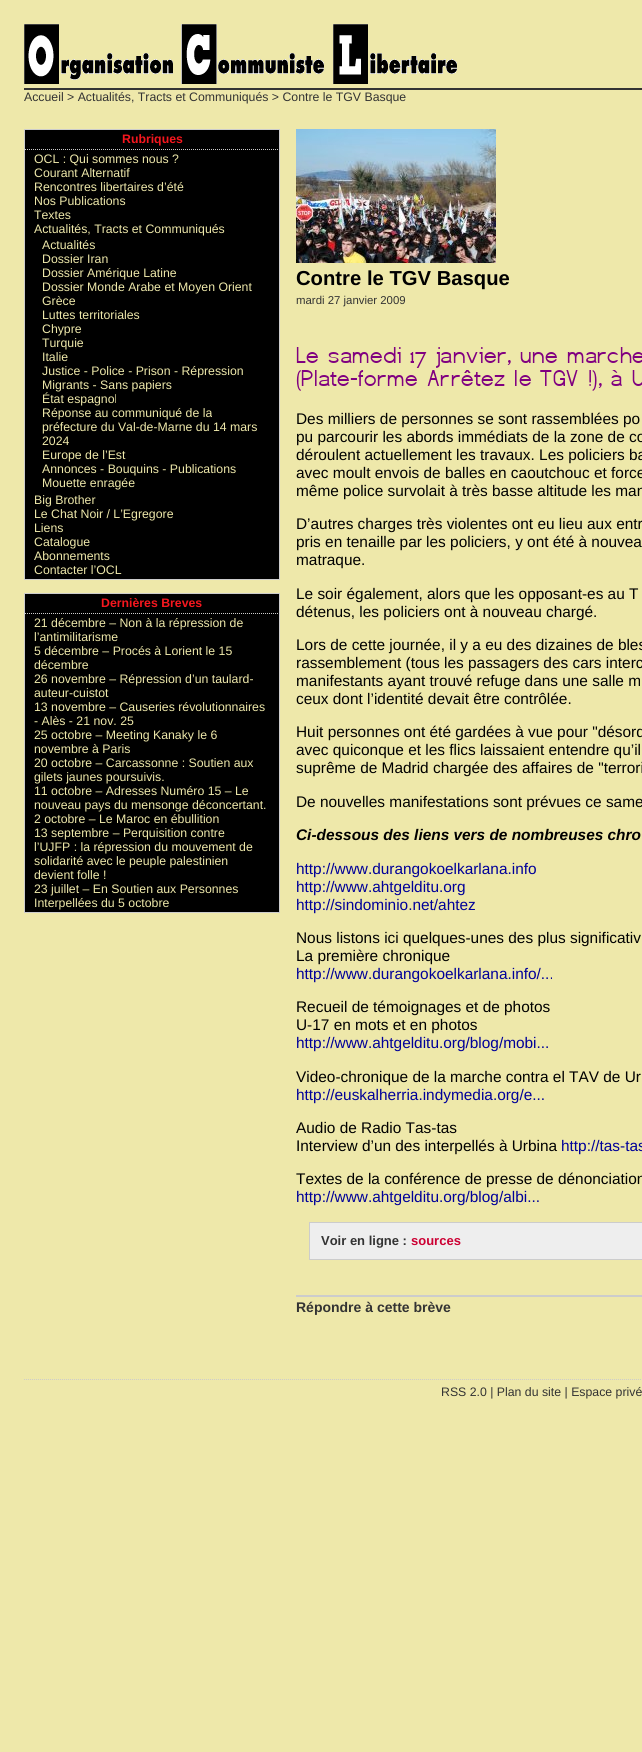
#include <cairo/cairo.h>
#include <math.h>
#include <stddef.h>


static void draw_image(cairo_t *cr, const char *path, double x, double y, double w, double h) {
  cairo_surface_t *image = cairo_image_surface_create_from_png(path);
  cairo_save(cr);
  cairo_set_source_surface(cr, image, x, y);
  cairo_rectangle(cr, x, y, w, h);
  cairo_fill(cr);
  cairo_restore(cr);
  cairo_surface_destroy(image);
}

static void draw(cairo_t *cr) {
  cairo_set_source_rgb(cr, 238 / 255.0, 232 / 255.0, 170 / 255.0);
  cairo_paint(cr);
  cairo_set_source_rgb(cr, 51 / 255.0, 51 / 255.0, 51 / 255.0);
  cairo_rectangle(cr, 24, 88, 618, 2);
  cairo_fill(cr);
  draw_image(cr, "images/1.png", 24, 24, 433, 60);
  cairo_set_source_rgb(cr, 0, 0, 0);
  cairo_rectangle(cr, 24.5, 129.5, 255, 450);
  cairo_fill_preserve(cr);
  cairo_set_source_rgb(cr, 204 / 255.0, 204 / 255.0, 204 / 255.0);
  cairo_set_line_width(cr, 1);
  cairo_stroke(cr);
  cairo_new_path(cr);
  cairo_move_to(cr, 25, 149.5);
  cairo_line_to(cr, 279, 149.5);
  cairo_set_dash(cr, (double[]){1, 1}, 2, 0);
  cairo_stroke(cr);
  cairo_set_source_rgb(cr, 0, 0, 0);
  cairo_rectangle(cr, 24.5, 593.5, 255, 319);
  cairo_fill_preserve(cr);
  cairo_set_source_rgb(cr, 204 / 255.0, 204 / 255.0, 204 / 255.0);
  cairo_set_dash(cr, NULL, 0, 0);
  cairo_stroke(cr);
  cairo_new_path(cr);
  cairo_move_to(cr, 25, 613.5);
  cairo_line_to(cr, 279, 613.5);
  cairo_set_dash(cr, (double[]){1, 1}, 2, 0);
  cairo_stroke(cr);
  draw_image(cr, "images/2.png", 296, 129, 200, 134);
  draw_image(cr, "images/3.png", 296, 347, 346, 44);
  cairo_set_source_rgb(cr, 238 / 255.0, 238 / 255.0, 238 / 255.0);
  cairo_rectangle(cr, 309.5, 1222.5, 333, 37);
  cairo_fill_preserve(cr);
  cairo_set_source_rgb(cr, 204 / 255.0, 204 / 255.0, 204 / 255.0);
  cairo_set_dash(cr, NULL, 0, 0);
  cairo_stroke(cr);
  cairo_rectangle(cr, 296, 1295, 346, 2);
  cairo_fill(cr);
  cairo_new_path(cr);
  cairo_move_to(cr, 24, 1379.5);
  cairo_line_to(cr, 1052, 1379.5);
  cairo_set_dash(cr, (double[]){1, 1}, 2, 0);
  cairo_stroke(cr);
  cairo_select_font_face(cr, "Liberation Sans", CAIRO_FONT_SLANT_NORMAL, CAIRO_FONT_WEIGHT_NORMAL);
  cairo_set_font_size(cr, 12.3);
  cairo_set_source_rgb(cr, 51 / 255.0, 51 / 255.0, 51 / 255.0);
  cairo_move_to(cr, 24, 101);
  cairo_show_text(cr, "Accueil > Actualités, Tracts et Communiqués > Contre le TGV Basque");
  cairo_select_font_face(cr, "Liberation Sans", CAIRO_FONT_SLANT_NORMAL, CAIRO_FONT_WEIGHT_BOLD);
  cairo_set_source_rgb(cr, 246 / 255.0, 23 / 255.0, 30 / 255.0);
  cairo_move_to(cr, 122, 143);
  cairo_show_text(cr, "Rubriques");
  cairo_select_font_face(cr, "Liberation Sans", CAIRO_FONT_SLANT_NORMAL, CAIRO_FONT_WEIGHT_NORMAL);
  cairo_set_source_rgb(cr, 238 / 255.0, 232 / 255.0, 170 / 255.0);
  cairo_move_to(cr, 34, 163);
  cairo_show_text(cr, "OCL : Qui sommes nous ?");
  cairo_move_to(cr, 34, 177);
  cairo_show_text(cr, "Courant Alternatif");
  cairo_move_to(cr, 34, 191);
  cairo_show_text(cr, "Rencontres libertaires d’été");
  cairo_move_to(cr, 34, 205);
  cairo_show_text(cr, "Nos Publications");
  cairo_move_to(cr, 34, 219);
  cairo_show_text(cr, "Textes");
  cairo_move_to(cr, 34, 233);
  cairo_show_text(cr, "Actualités, Tracts et Communiqués");
  cairo_move_to(cr, 42, 249);
  cairo_show_text(cr, "Actualités");
  cairo_move_to(cr, 42, 263);
  cairo_show_text(cr, "Dossier Iran");
  cairo_move_to(cr, 42, 277);
  cairo_show_text(cr, "Dossier Amérique Latine");
  cairo_move_to(cr, 42, 291);
  cairo_show_text(cr, "Dossier Monde Arabe et Moyen Orient");
  cairo_move_to(cr, 42, 305);
  cairo_show_text(cr, "Grèce");
  cairo_move_to(cr, 42, 319);
  cairo_show_text(cr, "Luttes territoriales");
  cairo_move_to(cr, 42, 333);
  cairo_show_text(cr, "Chypre");
  cairo_move_to(cr, 42, 347);
  cairo_show_text(cr, "Turquie");
  cairo_move_to(cr, 42, 361);
  cairo_show_text(cr, "Italie");
  cairo_move_to(cr, 42, 375);
  cairo_show_text(cr, "Justice - Police - Prison - Répression");
  cairo_move_to(cr, 42, 389);
  cairo_show_text(cr, "Migrants - Sans papiers");
  cairo_move_to(cr, 42, 403);
  cairo_show_text(cr, "État espagnol");
  cairo_move_to(cr, 42, 417);
  cairo_show_text(cr, "Réponse au communiqué de la");
  cairo_move_to(cr, 42, 431);
  cairo_show_text(cr, "préfecture du Val-de-Marne du 14 mars");
  cairo_move_to(cr, 42, 445);
  cairo_show_text(cr, "2024");
  cairo_move_to(cr, 42, 459);
  cairo_show_text(cr, "Europe de l’Est");
  cairo_move_to(cr, 42, 473);
  cairo_show_text(cr, "Annonces - Bouquins - Publications");
  cairo_move_to(cr, 42, 487);
  cairo_show_text(cr, "Mouette enragée");
  cairo_move_to(cr, 34, 504);
  cairo_show_text(cr, "Big Brother");
  cairo_move_to(cr, 34, 518);
  cairo_show_text(cr, "Le Chat Noir / L’Egregore");
  cairo_move_to(cr, 34, 532);
  cairo_show_text(cr, "Liens");
  cairo_move_to(cr, 34, 546);
  cairo_show_text(cr, "Catalogue");
  cairo_move_to(cr, 34, 560);
  cairo_show_text(cr, "Abonnements");
  cairo_move_to(cr, 34, 574);
  cairo_show_text(cr, "Contacter l’OCL");
  cairo_select_font_face(cr, "Liberation Sans", CAIRO_FONT_SLANT_NORMAL, CAIRO_FONT_WEIGHT_BOLD);
  cairo_set_source_rgb(cr, 246 / 255.0, 23 / 255.0, 30 / 255.0);
  cairo_move_to(cr, 101, 607);
  cairo_show_text(cr, "Dernières Breves");
  cairo_select_font_face(cr, "Liberation Sans", CAIRO_FONT_SLANT_NORMAL, CAIRO_FONT_WEIGHT_NORMAL);
  cairo_set_source_rgb(cr, 238 / 255.0, 232 / 255.0, 170 / 255.0);
  cairo_move_to(cr, 34, 627);
  cairo_show_text(cr, "21 décembre – Non à la répression de");
  cairo_move_to(cr, 34, 641);
  cairo_show_text(cr, "l’antimilitarisme");
  cairo_move_to(cr, 34, 655);
  cairo_show_text(cr, "5 décembre – Procés à Lorient le 15");
  cairo_move_to(cr, 34, 669);
  cairo_show_text(cr, "décembre");
  cairo_move_to(cr, 34, 683);
  cairo_show_text(cr, "26 novembre – Répression d’un taulard-");
  cairo_move_to(cr, 34, 697);
  cairo_show_text(cr, "auteur-cuistot");
  cairo_move_to(cr, 34, 711);
  cairo_show_text(cr, "13 novembre – Causeries révolutionnaires");
  cairo_move_to(cr, 34, 725);
  cairo_show_text(cr, "- Alès - 21 nov. 25");
  cairo_move_to(cr, 34, 739);
  cairo_show_text(cr, "25 octobre – Meeting Kanaky le 6");
  cairo_move_to(cr, 34, 753);
  cairo_show_text(cr, "novembre à Paris");
  cairo_move_to(cr, 34, 767);
  cairo_show_text(cr, "20 octobre – Carcassonne : Soutien aux");
  cairo_move_to(cr, 34, 781);
  cairo_show_text(cr, "gilets jaunes poursuivis.");
  cairo_move_to(cr, 34, 795);
  cairo_show_text(cr, "11 octobre – Adresses Numéro 15 – Le");
  cairo_move_to(cr, 34, 809);
  cairo_show_text(cr, "nouveau pays du mensonge déconcertant.");
  cairo_move_to(cr, 34, 823);
  cairo_show_text(cr, "2 octobre – Le Maroc en ébullition");
  cairo_move_to(cr, 34, 837);
  cairo_show_text(cr, "13 septembre – Perquisition contre");
  cairo_move_to(cr, 34, 851);
  cairo_show_text(cr, "l’UJFP : la répression du mouvement de");
  cairo_move_to(cr, 34, 865);
  cairo_show_text(cr, "solidarité avec le peuple palestinien");
  cairo_move_to(cr, 34, 879);
  cairo_show_text(cr, "devient folle !");
  cairo_move_to(cr, 34, 893);
  cairo_show_text(cr, "23 juillet – En Soutien aux Personnes");
  cairo_move_to(cr, 34, 907);
  cairo_show_text(cr, "Interpellées du 5 octobre");
  cairo_select_font_face(cr, "Liberation Sans", CAIRO_FONT_SLANT_NORMAL, CAIRO_FONT_WEIGHT_BOLD);
  cairo_set_font_size(cr, 20.25);
  cairo_set_source_rgb(cr, 0, 0, 0);
  cairo_move_to(cr, 296, 285);
  cairo_show_text(cr, "Contre le TGV Basque");
  cairo_select_font_face(cr, "Liberation Sans", CAIRO_FONT_SLANT_NORMAL, CAIRO_FONT_WEIGHT_NORMAL);
  cairo_set_font_size(cr, 11.4);
  cairo_set_source_rgb(cr, 51 / 255.0, 51 / 255.0, 51 / 255.0);
  cairo_move_to(cr, 296, 304);
  cairo_show_text(cr, "mardi 27 janvier 2009");
  cairo_set_font_size(cr, 15.4);
  cairo_set_source_rgb(cr, 0, 0, 0);
  cairo_move_to(cr, 296, 424);
  cairo_show_text(cr, "Des milliers de personnes se sont rassemblées po");
  cairo_move_to(cr, 296, 442);
  cairo_show_text(cr, "pu parcourir les abords immédiats de la zone de co");
  cairo_move_to(cr, 296, 460);
  cairo_show_text(cr, "déroulent actuellement les travaux. Les policiers ba");
  cairo_move_to(cr, 296, 478);
  cairo_show_text(cr, "avec moult envois de balles en caoutchouc et force");
  cairo_move_to(cr, 296, 496);
  cairo_show_text(cr, "même police survolait à très basse altitude les man");
  cairo_move_to(cr, 296, 529);
  cairo_show_text(cr, "D’autres charges très violentes ont eu lieu aux entr");
  cairo_move_to(cr, 296, 547);
  cairo_show_text(cr, "pris en tenaille par les policiers, y ont été à nouvea");
  cairo_move_to(cr, 296, 565);
  cairo_show_text(cr, "matraque.");
  cairo_move_to(cr, 296, 599);
  cairo_show_text(cr, "Le soir également, alors que les opposant-es au T");
  cairo_move_to(cr, 296, 617);
  cairo_show_text(cr, "détenus, les policiers ont à nouveau chargé.");
  cairo_move_to(cr, 296, 650);
  cairo_show_text(cr, "Lors de cette journée, il y a eu des dizaines de bles");
  cairo_move_to(cr, 296, 668);
  cairo_show_text(cr, "rassemblement (tous les passagers des cars interc");
  cairo_move_to(cr, 296, 686);
  cairo_show_text(cr, "manifestants ayant trouvé refuge dans une salle m");
  cairo_move_to(cr, 296, 704);
  cairo_show_text(cr, "ceux dont l’identité devait être contrôlée.");
  cairo_move_to(cr, 296, 737);
  cairo_show_text(cr, "Huit personnes ont été gardées à vue pour \"désord");
  cairo_move_to(cr, 296, 755);
  cairo_show_text(cr, "avec quiconque et les flics laissaient entendre qu’il");
  cairo_move_to(cr, 296, 773);
  cairo_show_text(cr, "suprême de Madrid chargée des affaires de \"terrori");
  cairo_move_to(cr, 296, 807);
  cairo_show_text(cr, "De nouvelles manifestations sont prévues ce same");
  cairo_select_font_face(cr, "Liberation Sans", CAIRO_FONT_SLANT_ITALIC, CAIRO_FONT_WEIGHT_BOLD);
  cairo_move_to(cr, 296, 840);
  cairo_show_text(cr, "Ci-dessous des liens vers de nombreuses chro");
  cairo_select_font_face(cr, "Liberation Sans", CAIRO_FONT_SLANT_NORMAL, CAIRO_FONT_WEIGHT_NORMAL);
  cairo_set_source_rgb(cr, 0, 0, 153 / 255.0);
  cairo_move_to(cr, 296, 874);
  cairo_show_text(cr, "http://www.durangokoelkarlana.info");
  cairo_move_to(cr, 296, 892);
  cairo_show_text(cr, "http://www.ahtgelditu.org");
  cairo_move_to(cr, 296, 910);
  cairo_show_text(cr, "http://sindominio.net/ahtez");
  cairo_set_source_rgb(cr, 0, 0, 0);
  cairo_move_to(cr, 296, 943);
  cairo_show_text(cr, "Nous listons ici quelques-unes des plus significativ");
  cairo_move_to(cr, 296, 961);
  cairo_show_text(cr, "La première chronique");
  cairo_set_source_rgb(cr, 0, 0, 153 / 255.0);
  cairo_move_to(cr, 296, 979);
  cairo_show_text(cr, "http://www.durangokoelkarlana.info/...");
  cairo_set_source_rgb(cr, 0, 0, 0);
  cairo_move_to(cr, 296, 1012);
  cairo_show_text(cr, "Recueil de témoignages et de photos");
  cairo_move_to(cr, 296, 1030);
  cairo_show_text(cr, "U-17 en mots et en photos");
  cairo_set_source_rgb(cr, 0, 0, 153 / 255.0);
  cairo_move_to(cr, 296, 1048);
  cairo_show_text(cr, "http://www.ahtgelditu.org/blog/mobi...");
  cairo_set_source_rgb(cr, 0, 0, 0);
  cairo_move_to(cr, 296, 1082);
  cairo_show_text(cr, "Video-chronique de la marche contra el TAV de Ur");
  cairo_set_source_rgb(cr, 0, 0, 153 / 255.0);
  cairo_move_to(cr, 296, 1100);
  cairo_show_text(cr, "http://euskalherria.indymedia.org/e...");
  cairo_set_source_rgb(cr, 0, 0, 0);
  cairo_move_to(cr, 296, 1133);
  cairo_show_text(cr, "Audio de Radio Tas-tas");
  cairo_move_to(cr, 296, 1151);
  cairo_show_text(cr, "Interview d’un des interpellés à Urbina");
  cairo_set_source_rgb(cr, 0, 0, 153 / 255.0);
  cairo_move_to(cr, 561, 1151);
  cairo_show_text(cr, "http://tas-tas");
  cairo_set_source_rgb(cr, 0, 0, 0);
  cairo_move_to(cr, 296, 1184);
  cairo_show_text(cr, "Textes de la conférence de presse de dénonciation");
  cairo_set_source_rgb(cr, 0, 0, 153 / 255.0);
  cairo_move_to(cr, 296, 1202);
  cairo_show_text(cr, "http://www.ahtgelditu.org/blog/albi...");
  cairo_select_font_face(cr, "Liberation Sans", CAIRO_FONT_SLANT_NORMAL, CAIRO_FONT_WEIGHT_BOLD);
  cairo_set_font_size(cr, 13);
  cairo_set_source_rgb(cr, 51 / 255.0, 51 / 255.0, 51 / 255.0);
  cairo_move_to(cr, 321, 1245);
  cairo_show_text(cr, "Voir en ligne :");
  cairo_set_source_rgb(cr, 204 / 255.0, 0, 51 / 255.0);
  cairo_move_to(cr, 411, 1245);
  cairo_show_text(cr, "sources");
  cairo_set_font_size(cr, 14);
  cairo_set_source_rgb(cr, 51 / 255.0, 51 / 255.0, 51 / 255.0);
  cairo_move_to(cr, 296, 1312);
  cairo_show_text(cr, "Répondre à cette brève");
  cairo_select_font_face(cr, "Liberation Sans", CAIRO_FONT_SLANT_NORMAL, CAIRO_FONT_WEIGHT_NORMAL);
  cairo_set_font_size(cr, 12.3);
  cairo_move_to(cr, 441, 1396);
  cairo_show_text(cr, "RSS 2.0 | Plan du site | Espace privé");
}

int main(void) {
  cairo_surface_t *surface = cairo_image_surface_create(CAIRO_FORMAT_RGB24, 642, 1752);
  cairo_t *cr = cairo_create(surface);
  cairo_font_options_t *options = cairo_font_options_create();
  cairo_font_options_set_hint_metrics(options, CAIRO_HINT_METRICS_OFF);
  cairo_font_options_set_hint_style(options, CAIRO_HINT_STYLE_NONE);
  cairo_set_font_options(cr, options);
  cairo_set_miter_limit(cr, 4);
  draw(cr);
  cairo_surface_write_to_png(surface, "out.png");
  cairo_font_options_destroy(options);
  cairo_destroy(cr);
  cairo_surface_destroy(surface);
  return 0;
}
